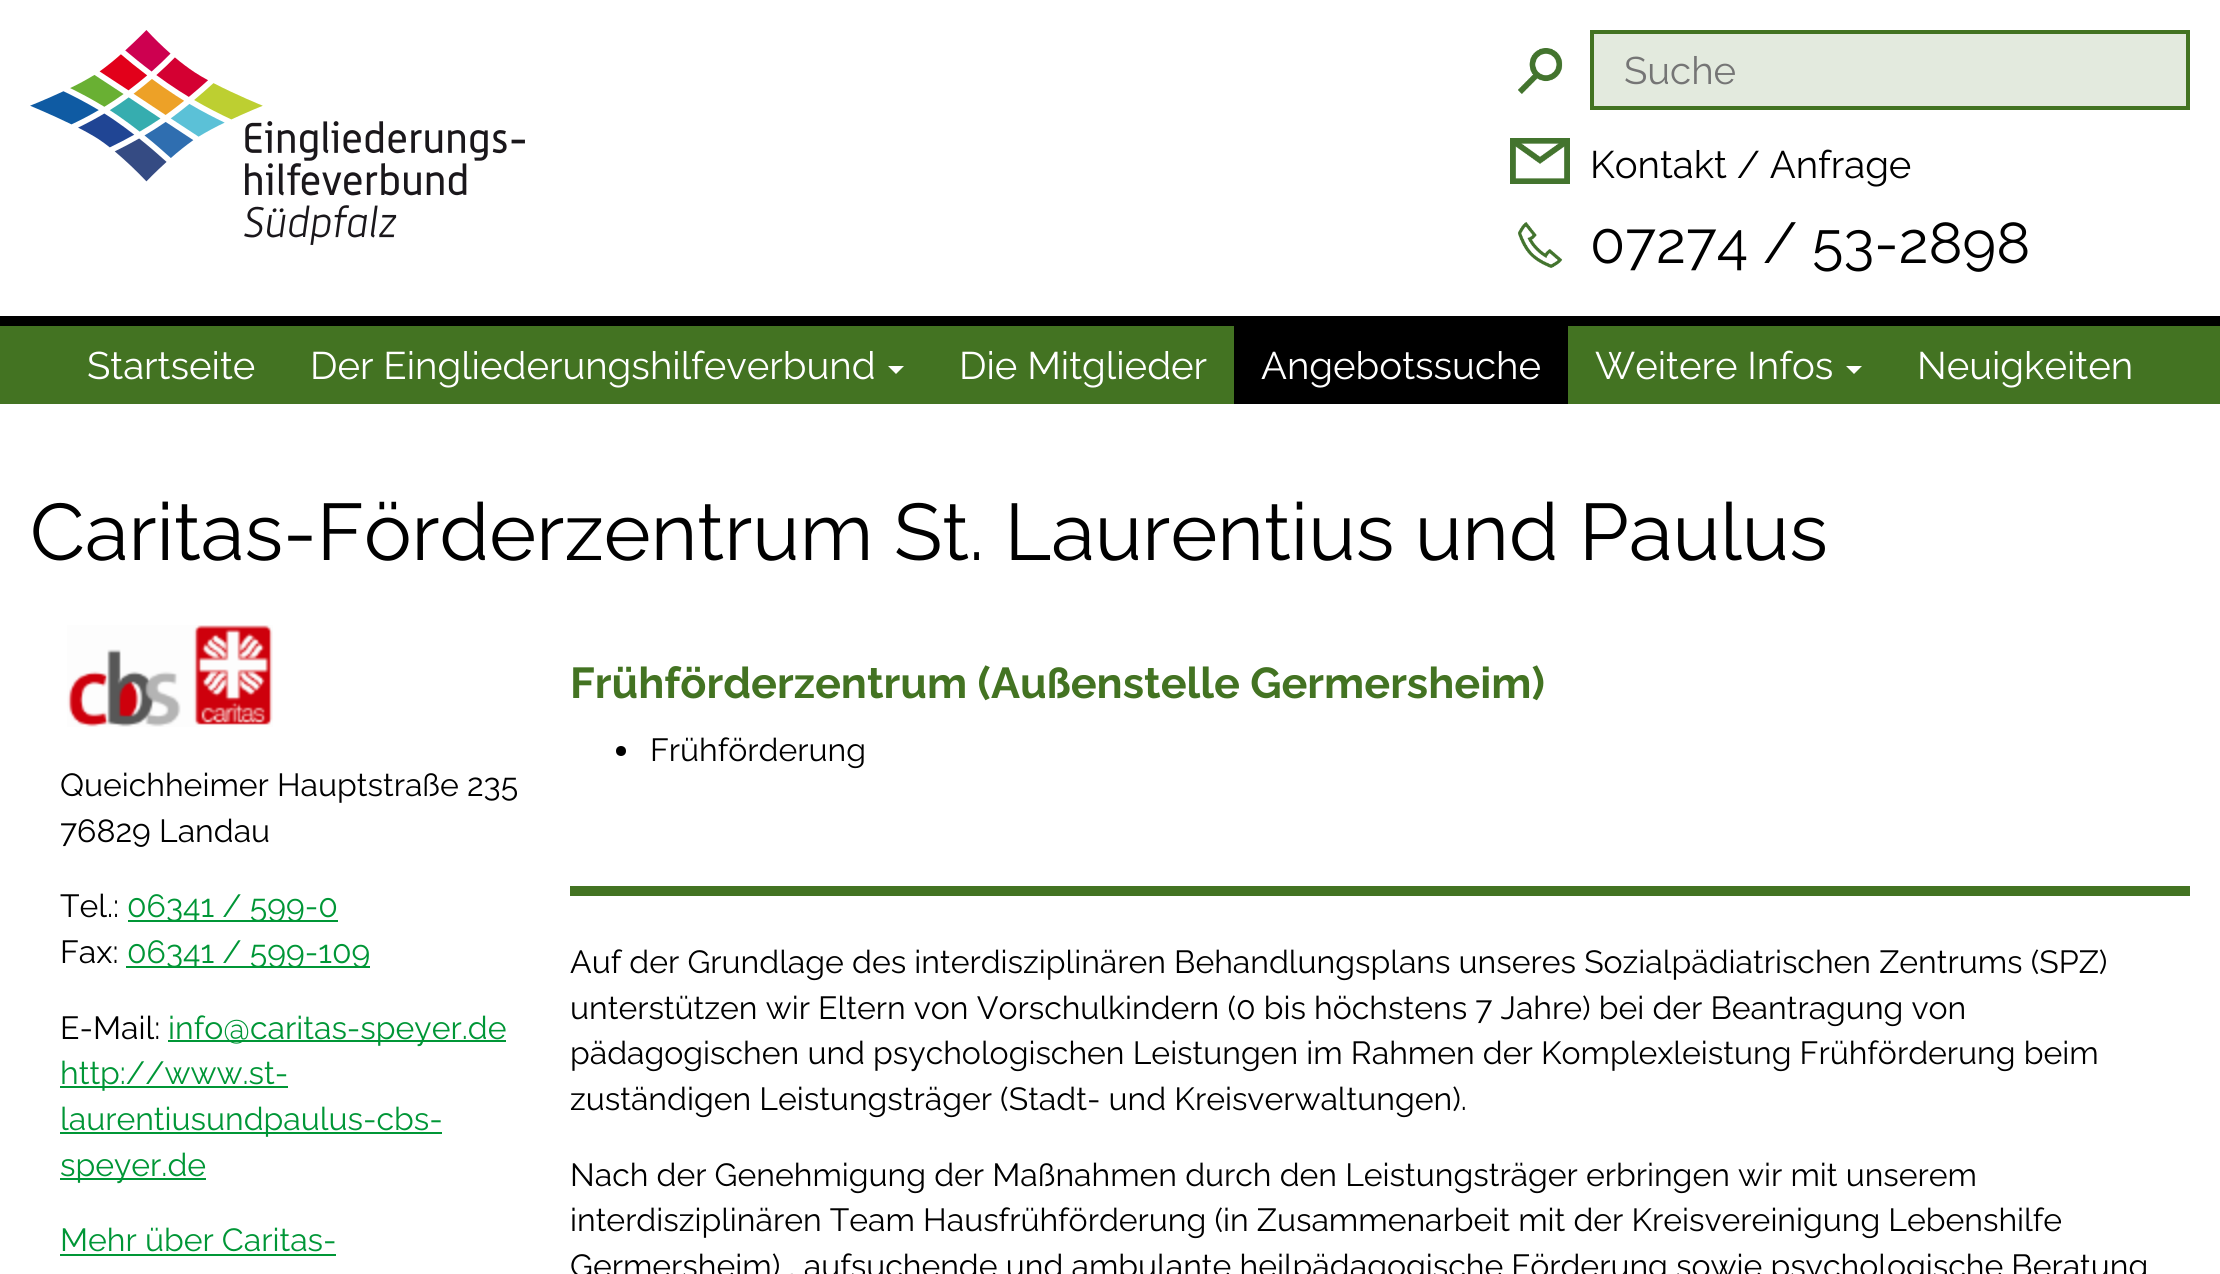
#include <cairo/cairo.h>
#include <math.h>
#include <stddef.h>


static void draw_image(cairo_t *cr, const char *path, double x, double y, double w, double h) {
  cairo_surface_t *image = cairo_image_surface_create_from_png(path);
  cairo_save(cr);
  cairo_set_source_surface(cr, image, x, y);
  cairo_rectangle(cr, x, y, w, h);
  cairo_fill(cr);
  cairo_restore(cr);
  cairo_surface_destroy(image);
}

static void draw(cairo_t *cr) {
  cairo_set_source_rgb(cr, 1, 1, 1);
  cairo_paint(cr);
  cairo_set_source_rgb(cr, 0, 0, 0);
  cairo_rectangle(cr, 0, 316, 2220, 10);
  cairo_fill(cr);
  draw_image(cr, "images/1.png", 30, 30, 495, 215);
  draw_image(cr, "images/2.png", 1518, 48, 45, 46);
  cairo_set_source_rgb(cr, 227 / 255.0, 234 / 255.0, 222 / 255.0);
  cairo_rectangle(cr, 1592, 32, 596, 76);
  cairo_fill_preserve(cr);
  cairo_set_source_rgb(cr, 67 / 255.0, 115 / 255.0, 34 / 255.0);
  cairo_set_line_width(cr, 4);
  cairo_stroke(cr);
  draw_image(cr, "images/3.png", 1510, 138, 60, 46);
  draw_image(cr, "images/4.png", 1518, 222, 45, 46);
  cairo_rectangle(cr, 0, 326, 2220, 78);
  cairo_fill(cr);
  cairo_set_source_rgb(cr, 1, 1, 1);
  cairo_new_path(cr);
  cairo_move_to(cr, 888, 366);
  cairo_line_to(cr, 904, 366);
  cairo_line_to(cr, 896, 374);
  cairo_close_path(cr);
  cairo_fill(cr);
  cairo_set_source_rgb(cr, 0, 0, 0);
  cairo_rectangle(cr, 1234, 326, 334, 78);
  cairo_fill(cr);
  cairo_set_source_rgb(cr, 1, 1, 1);
  cairo_new_path(cr);
  cairo_move_to(cr, 1846, 366);
  cairo_line_to(cr, 1862, 366);
  cairo_line_to(cr, 1854, 374);
  cairo_close_path(cr);
  cairo_fill(cr);
  draw_image(cr, "images/5.png", 67, 625, 206, 102);
  cairo_set_source_rgb(cr, 0, 150 / 255.0, 54 / 255.0);
  cairo_rectangle(cr, 128, 920, 210, 2);
  cairo_fill(cr);
  cairo_rectangle(cr, 126, 966, 244, 2);
  cairo_fill(cr);
  cairo_rectangle(cr, 168, 1040, 338, 2);
  cairo_fill(cr);
  cairo_rectangle(cr, 60, 1086, 228, 2);
  cairo_fill(cr);
  cairo_rectangle(cr, 60, 1132, 382, 2);
  cairo_fill(cr);
  cairo_rectangle(cr, 60, 1178, 146, 2);
  cairo_fill(cr);
  cairo_rectangle(cr, 60, 1254, 276, 2);
  cairo_fill(cr);
  cairo_set_source_rgb(cr, 0, 0, 0);
  cairo_arc(cr, 621, 751, 5, 0, 2 * M_PI);
  cairo_fill(cr);
  cairo_set_source_rgb(cr, 67 / 255.0, 115 / 255.0, 34 / 255.0);
  cairo_rectangle(cr, 570, 886, 1620, 10);
  cairo_fill(cr);
  cairo_select_font_face(cr, "Raleway Thin", CAIRO_FONT_SLANT_NORMAL, CAIRO_FONT_WEIGHT_NORMAL);
  cairo_set_font_size(cr, 38.4);
  cairo_set_source_rgb(cr, 117 / 255.0, 117 / 255.0, 117 / 255.0);
  cairo_move_to(cr, 1624, 84);
  cairo_show_text(cr, "Suche");
  cairo_set_source_rgb(cr, 0, 0, 0);
  cairo_move_to(cr, 1590, 178);
  cairo_show_text(cr, "Kontakt / Anfrage");
  cairo_set_font_size(cr, 57.5);
  cairo_move_to(cr, 1590, 263);
  cairo_show_text(cr, "07274 / 53-2898");
  cairo_set_font_size(cr, 38.4);
  cairo_set_source_rgb(cr, 1, 1, 1);
  cairo_move_to(cr, 87, 379);
  cairo_show_text(cr, "Startseite");
  cairo_move_to(cr, 310, 379);
  cairo_show_text(cr, "Der Eingliederungshilfeverbund");
  cairo_move_to(cr, 959, 379);
  cairo_show_text(cr, "Die Mitglieder");
  cairo_move_to(cr, 1261, 379);
  cairo_show_text(cr, "Angebotssuche");
  cairo_move_to(cr, 1595, 379);
  cairo_show_text(cr, "Weitere Infos");
  cairo_move_to(cr, 1917, 379);
  cairo_show_text(cr, "Neuigkeiten");
  cairo_set_font_size(cr, 80);
  cairo_set_source_rgb(cr, 0, 0, 0);
  cairo_move_to(cr, 30, 560);
  cairo_show_text(cr, "Caritas-Förderzentrum St. Laurentius und Paulus");
  cairo_set_font_size(cr, 32);
  cairo_move_to(cr, 60, 796);
  cairo_show_text(cr, "Queichheimer Hauptstraße 235");
  cairo_move_to(cr, 60, 842);
  cairo_show_text(cr, "76829 Landau");
  cairo_move_to(cr, 60, 917);
  cairo_show_text(cr, "Tel.:");
  cairo_set_source_rgb(cr, 0, 150 / 255.0, 54 / 255.0);
  cairo_move_to(cr, 127, 917);
  cairo_show_text(cr, "06341 / 599-0");
  cairo_set_source_rgb(cr, 0, 0, 0);
  cairo_move_to(cr, 60, 963);
  cairo_show_text(cr, "Fax:");
  cairo_set_source_rgb(cr, 0, 150 / 255.0, 54 / 255.0);
  cairo_move_to(cr, 127, 963);
  cairo_show_text(cr, "06341 / 599-109");
  cairo_set_source_rgb(cr, 0, 0, 0);
  cairo_move_to(cr, 60, 1039);
  cairo_show_text(cr, "E-Mail:");
  cairo_set_source_rgb(cr, 0, 150 / 255.0, 54 / 255.0);
  cairo_move_to(cr, 168, 1039);
  cairo_show_text(cr, "info@caritas-speyer.de");
  cairo_move_to(cr, 60, 1084);
  cairo_show_text(cr, "http://www.st-");
  cairo_move_to(cr, 60, 1130);
  cairo_show_text(cr, "laurentiusundpaulus-cbs-");
  cairo_move_to(cr, 60, 1176);
  cairo_show_text(cr, "speyer.de");
  cairo_move_to(cr, 60, 1251);
  cairo_show_text(cr, "Mehr über Caritas-");
  cairo_select_font_face(cr, "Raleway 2 Thin", CAIRO_FONT_SLANT_NORMAL, CAIRO_FONT_WEIGHT_NORMAL);
  cairo_set_font_size(cr, 43.2);
  cairo_set_source_rgb(cr, 67 / 255.0, 115 / 255.0, 34 / 255.0);
  cairo_move_to(cr, 570, 698);
  cairo_show_text(cr, "Frühförderzentrum (Außenstelle Germersheim)");
  cairo_select_font_face(cr, "Raleway Thin", CAIRO_FONT_SLANT_NORMAL, CAIRO_FONT_WEIGHT_NORMAL);
  cairo_set_font_size(cr, 32);
  cairo_set_source_rgb(cr, 0, 0, 0);
  cairo_move_to(cr, 650, 761);
  cairo_show_text(cr, "Frühförderung");
  cairo_move_to(cr, 570, 973);
  cairo_show_text(cr, "Auf der Grundlage des interdisziplinären Behandlungsplans unseres Sozialpädiatrischen Zentrums (SPZ)");
  cairo_move_to(cr, 570, 1019);
  cairo_show_text(cr, "unterstützen wir Eltern von Vorschulkindern (0 bis höchstens 7 Jahre) bei der Beantragung von");
  cairo_move_to(cr, 570, 1064);
  cairo_show_text(cr, "pädagogischen und psychologischen Leistungen im Rahmen der Komplexleistung Frühförderung beim");
  cairo_move_to(cr, 570, 1110);
  cairo_show_text(cr, "zuständigen Leistungsträger (Stadt- und Kreisverwaltungen).");
  cairo_move_to(cr, 570, 1186);
  cairo_show_text(cr, "Nach der Genehmigung der Maßnahmen durch den Leistungsträger erbringen wir mit unserem");
  cairo_move_to(cr, 570, 1231);
  cairo_show_text(cr, "interdisziplinären Team Hausfrühförderung (in Zusammenarbeit mit der Kreisvereinigung Lebenshilfe");
  cairo_move_to(cr, 570, 1277);
  cairo_show_text(cr, "Germersheim) , aufsuchende und ambulante heilpädagogische Förderung sowie psychologische Beratung");
}

int main(void) {
  cairo_surface_t *surface = cairo_image_surface_create(CAIRO_FORMAT_RGB24, 2220, 1274);
  cairo_t *cr = cairo_create(surface);
  cairo_font_options_t *options = cairo_font_options_create();
  cairo_font_options_set_hint_metrics(options, CAIRO_HINT_METRICS_OFF);
  cairo_font_options_set_hint_style(options, CAIRO_HINT_STYLE_NONE);
  cairo_set_font_options(cr, options);
  cairo_set_miter_limit(cr, 4);
  draw(cr);
  cairo_surface_write_to_png(surface, "out.png");
  cairo_font_options_destroy(options);
  cairo_destroy(cr);
  cairo_surface_destroy(surface);
  return 0;
}
